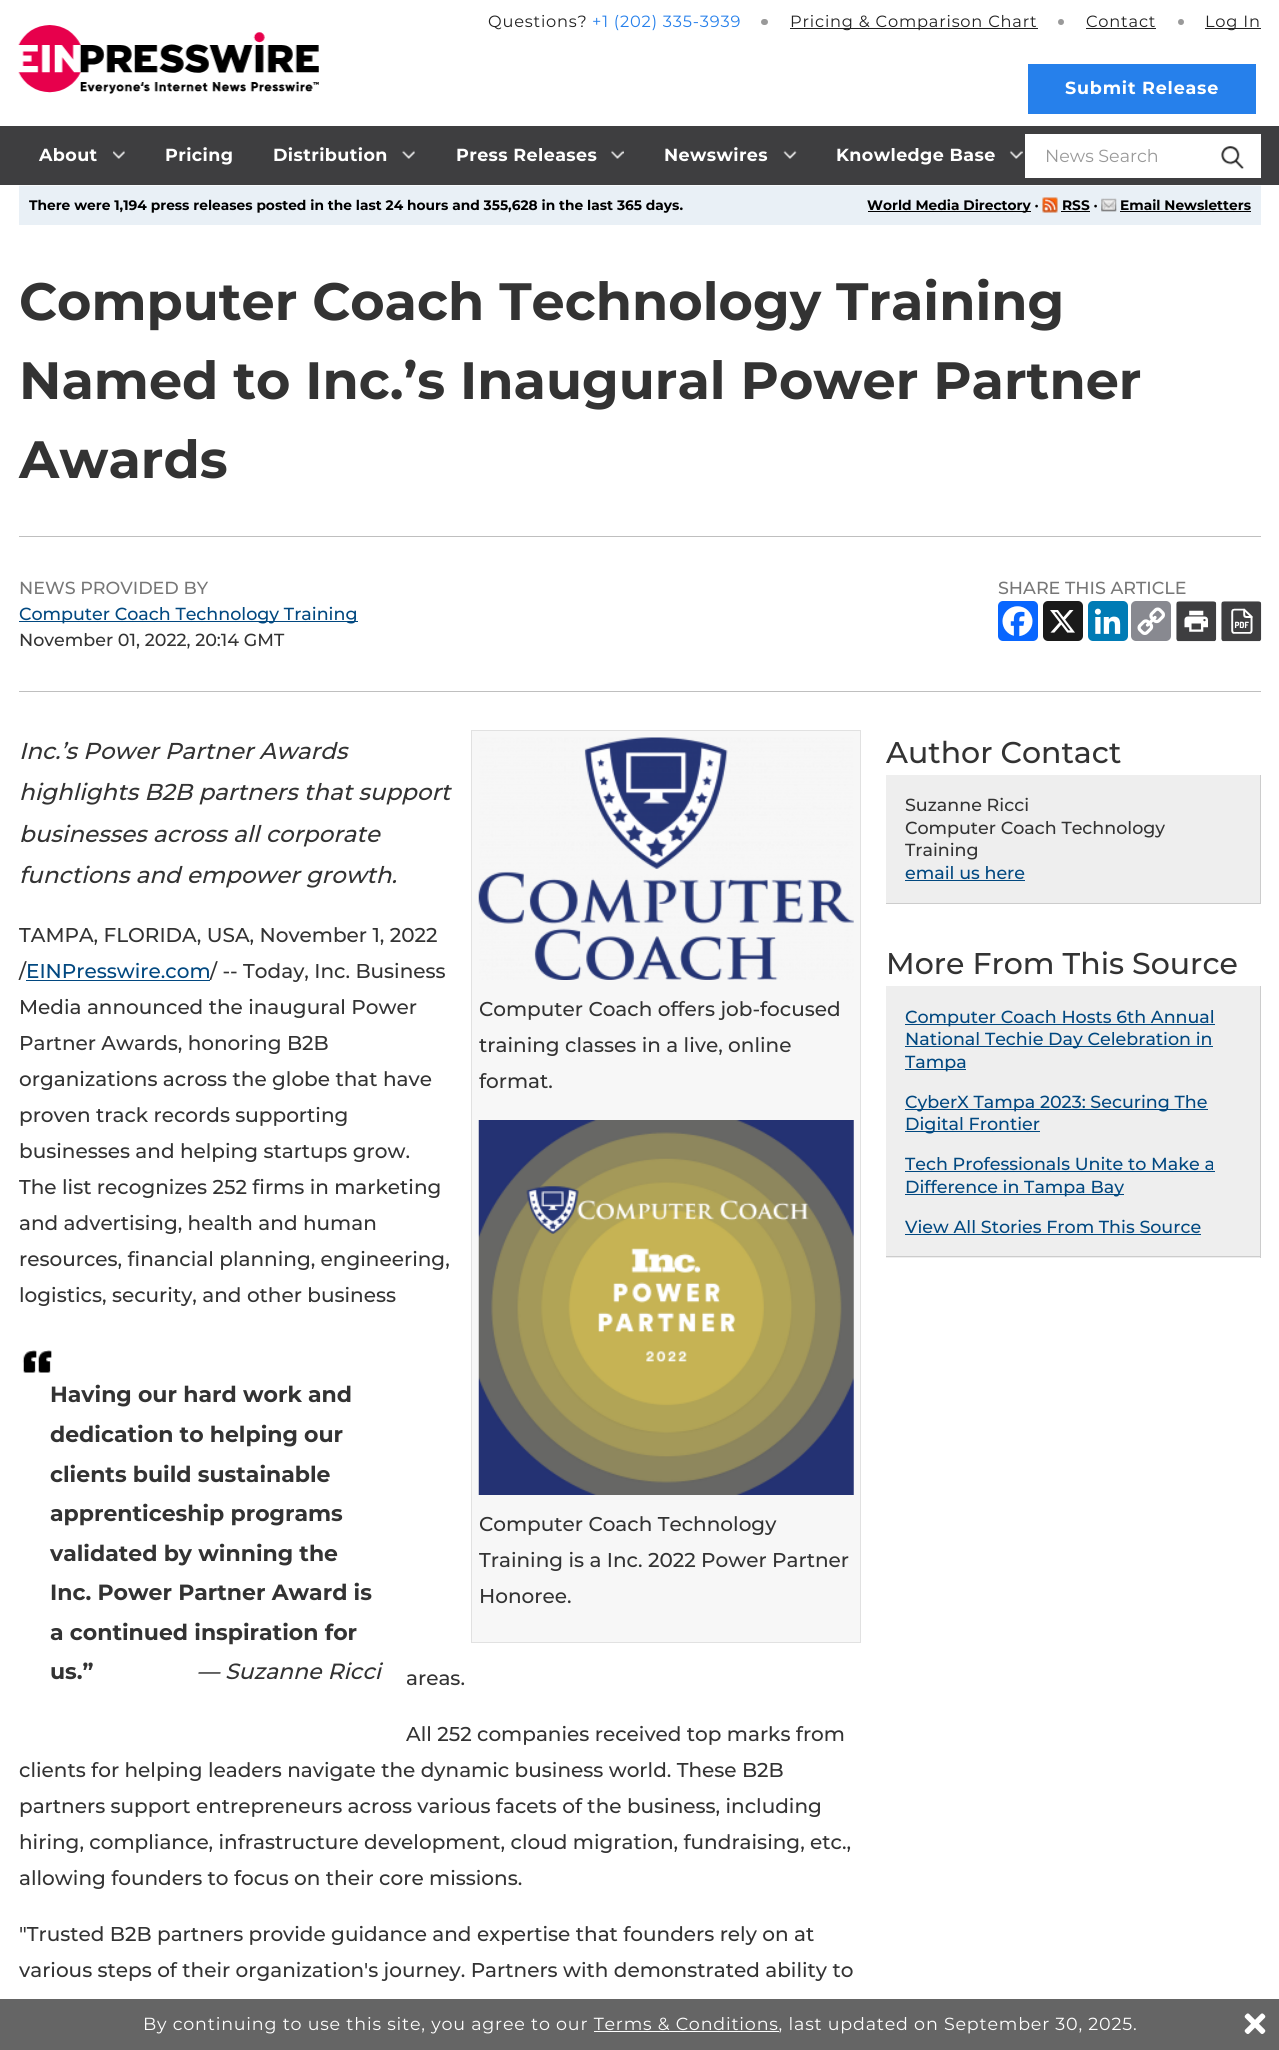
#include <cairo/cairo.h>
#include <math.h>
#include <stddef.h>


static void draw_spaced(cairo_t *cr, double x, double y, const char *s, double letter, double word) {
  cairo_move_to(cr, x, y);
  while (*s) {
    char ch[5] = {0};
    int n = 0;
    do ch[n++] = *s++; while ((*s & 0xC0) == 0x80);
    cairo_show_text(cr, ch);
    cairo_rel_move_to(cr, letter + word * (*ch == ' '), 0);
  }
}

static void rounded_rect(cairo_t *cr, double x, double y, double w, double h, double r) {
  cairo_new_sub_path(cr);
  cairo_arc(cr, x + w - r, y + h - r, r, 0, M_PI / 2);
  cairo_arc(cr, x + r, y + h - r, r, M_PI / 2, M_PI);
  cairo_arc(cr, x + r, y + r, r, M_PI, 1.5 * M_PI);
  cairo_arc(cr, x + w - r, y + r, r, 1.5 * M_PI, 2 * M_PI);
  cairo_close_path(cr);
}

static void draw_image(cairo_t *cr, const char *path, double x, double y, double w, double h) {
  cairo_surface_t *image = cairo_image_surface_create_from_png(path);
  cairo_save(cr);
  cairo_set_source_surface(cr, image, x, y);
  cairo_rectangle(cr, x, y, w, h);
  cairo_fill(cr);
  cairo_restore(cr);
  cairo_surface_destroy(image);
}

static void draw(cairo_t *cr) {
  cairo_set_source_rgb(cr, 1, 1, 1);
  cairo_paint(cr);
  cairo_set_source_rgb(cr, 62 / 255.0, 62 / 255.0, 64 / 255.0);
  cairo_rectangle(cr, 0, 126, 1279, 59);
  cairo_fill(cr);
  cairo_set_source_rgb(cr, 153 / 255.0, 153 / 255.0, 153 / 255.0);
  rounded_rect(cr, 761, 19, 7, 6, 3);
  cairo_fill(cr);
  cairo_set_source_rgb(cr, 33 / 255.0, 33 / 255.0, 33 / 255.0);
  cairo_rectangle(cr, 790, 28, 248, 1);
  cairo_fill(cr);
  cairo_set_source_rgb(cr, 153 / 255.0, 153 / 255.0, 153 / 255.0);
  cairo_arc(cr, 1061, 22, 3, 0, 2 * M_PI);
  cairo_fill(cr);
  cairo_set_source_rgb(cr, 33 / 255.0, 33 / 255.0, 33 / 255.0);
  cairo_rectangle(cr, 1086, 28, 70, 1);
  cairo_fill(cr);
  cairo_set_source_rgb(cr, 153 / 255.0, 153 / 255.0, 153 / 255.0);
  cairo_arc(cr, 1181, 22, 3, 0, 2 * M_PI);
  cairo_fill(cr);
  cairo_set_source_rgb(cr, 33 / 255.0, 33 / 255.0, 33 / 255.0);
  cairo_rectangle(cr, 1205, 28, 56, 1);
  cairo_fill(cr);
  cairo_set_source_rgb(cr, 38 / 255.0, 128 / 255.0, 235 / 255.0);
  cairo_rectangle(cr, 1028, 64, 228, 50);
  cairo_fill(cr);
  draw_image(cr, "images/1.png", 113, 150, 12, 9);
  draw_image(cr, "images/2.png", 402, 150, 13, 9);
  draw_image(cr, "images/3.png", 611, 150, 13, 9);
  draw_image(cr, "images/4.png", 783, 150, 14, 9);
  draw_image(cr, "images/5.png", 1009, 150, 14, 9);
  draw_image(cr, "images/6.png", 18, 25, 301, 69);
  cairo_set_source_rgb(cr, 1, 1, 1);
  cairo_rectangle(cr, 1025, 134, 236, 44);
  cairo_fill(cr);
  draw_image(cr, "images/7.png", 1221, 146, 23, 23);
  cairo_set_source_rgb(cr, 233 / 255.0, 240 / 255.0, 246 / 255.0);
  cairo_rectangle(cr, 19, 186, 1242, 39);
  cairo_fill(cr);
  cairo_set_source_rgb(cr, 246 / 255.0, 249 / 255.0, 251 / 255.0);
  cairo_rectangle(cr, 19, 185, 1242, 1);
  cairo_fill(cr);
  cairo_set_source_rgb(cr, 0, 0, 0);
  cairo_rectangle(cr, 868, 211, 163, 1);
  cairo_fill(cr);
  draw_image(cr, "images/8.png", 1042, 197, 16, 16);
  cairo_rectangle(cr, 1061, 211, 29, 1);
  cairo_fill(cr);
  draw_image(cr, "images/9.png", 1101, 198, 16, 14);
  cairo_rectangle(cr, 1120, 211, 131, 1);
  cairo_fill(cr);
  cairo_set_source_rgb(cr, 191 / 255.0, 191 / 255.0, 191 / 255.0);
  cairo_rectangle(cr, 19, 536, 1242, 1);
  cairo_fill(cr);
  cairo_rectangle(cr, 19, 691, 1242, 1);
  cairo_fill(cr);
  cairo_set_source_rgb(cr, 1 / 255.0, 72 / 255.0, 128 / 255.0);
  cairo_rectangle(cr, 19, 621, 339, 1);
  cairo_fill(cr);
  cairo_set_source_rgb(cr, 8 / 255.0, 102 / 255.0, 1);
  rounded_rect(cr, 998, 601, 40, 40, 5);
  cairo_fill(cr);
  draw_image(cr, "images/10.png", 1002, 606, 31, 31);
  cairo_set_source_rgb(cr, 26 / 255.0, 26 / 255.0, 26 / 255.0);
  rounded_rect(cr, 1043, 601, 40, 40, 5);
  cairo_fill(cr);
  draw_image(cr, "images/11.png", 1050, 610, 25, 23);
  cairo_set_source_rgb(cr, 0, 123 / 255.0, 181 / 255.0);
  rounded_rect(cr, 1088, 601, 40, 40, 5);
  cairo_fill(cr);
  draw_image(cr, "images/12.png", 1094, 608, 27, 26);
  cairo_set_source_rgb(cr, 136 / 255.0, 137 / 255.0, 144 / 255.0);
  rounded_rect(cr, 1131, 601, 40, 40, 5);
  cairo_fill(cr);
  draw_image(cr, "images/13.png", 1137, 607, 28, 28);
  draw_image(cr, "images/14.png", 1176, 601, 41, 41);
  draw_image(cr, "images/15.png", 1221, 601, 41, 41);
  cairo_set_source_rgb(cr, 1 / 255.0, 72 / 255.0, 128 / 255.0);
  cairo_rectangle(cr, 26, 980, 184, 1);
  cairo_fill(cr);
  cairo_set_source_rgb(cr, 247 / 255.0, 247 / 255.0, 247 / 255.0);
  cairo_rectangle(cr, 471.5, 730.5, 389, 912);
  cairo_fill_preserve(cr);
  cairo_set_source_rgb(cr, 225 / 255.0, 225 / 255.0, 225 / 255.0);
  cairo_set_line_width(cr, 1);
  cairo_stroke(cr);
  draw_image(cr, "images/16.png", 478, 737, 376, 243);
  draw_image(cr, "images/17.png", 478, 1120, 376, 375);
  draw_image(cr, "images/18.png", 22, 1350, 30, 23);
  cairo_set_source_rgb(cr, 238 / 255.0, 238 / 255.0, 238 / 255.0);
  cairo_rectangle(cr, 886, 775, 374, 128);
  cairo_fill(cr);
  cairo_set_source_rgb(cr, 204 / 255.0, 204 / 255.0, 204 / 255.0);
  cairo_rectangle(cr, 1260, 775, 1, 129);
  cairo_fill(cr);
  cairo_rectangle(cr, 886, 903, 375, 1);
  cairo_fill(cr);
  cairo_set_source_rgb(cr, 1 / 255.0, 72 / 255.0, 128 / 255.0);
  cairo_rectangle(cr, 905, 880, 120, 1);
  cairo_fill(cr);
  cairo_set_source_rgb(cr, 238 / 255.0, 238 / 255.0, 238 / 255.0);
  cairo_rectangle(cr, 886, 986, 374, 272);
  cairo_fill(cr);
  cairo_set_source_rgb(cr, 204 / 255.0, 204 / 255.0, 204 / 255.0);
  cairo_rectangle(cr, 1260, 986, 1, 272);
  cairo_fill(cr);
  cairo_rectangle(cr, 886, 1256, 375, 1);
  cairo_fill(cr);
  cairo_set_source_rgb(cr, 1 / 255.0, 72 / 255.0, 128 / 255.0);
  cairo_rectangle(cr, 905, 1024, 310, 1);
  cairo_fill(cr);
  cairo_rectangle(cr, 905, 1046, 308, 1);
  cairo_fill(cr);
  cairo_rectangle(cr, 905, 1069, 61, 1);
  cairo_fill(cr);
  cairo_rectangle(cr, 905, 1109, 303, 1);
  cairo_fill(cr);
  cairo_rectangle(cr, 905, 1131, 135, 1);
  cairo_fill(cr);
  cairo_rectangle(cr, 905, 1171, 310, 1);
  cairo_fill(cr);
  cairo_rectangle(cr, 905, 1194, 219, 1);
  cairo_fill(cr);
  cairo_rectangle(cr, 905, 1234, 296, 1);
  cairo_fill(cr);
  cairo_set_source_rgb(cr, 101 / 255.0, 101 / 255.0, 101 / 255.0);
  cairo_rectangle(cr, 0, 1999, 1279, 51);
  cairo_fill(cr);
  cairo_set_source_rgb(cr, 1, 1, 1);
  cairo_rectangle(cr, 594, 2031, 185, 1);
  cairo_fill(cr);
  draw_image(cr, "images/19.png", 1244, 2013, 22, 21);
  cairo_select_font_face(cr, "Montserrat", CAIRO_FONT_SLANT_NORMAL, CAIRO_FONT_WEIGHT_NORMAL);
  cairo_set_font_size(cr, 16.25);
  cairo_set_source_rgb(cr, 33 / 255.0, 33 / 255.0, 33 / 255.0);
  draw_spaced(cr, 488, 27, "Questions?", 0.8, 0);
  cairo_set_source_rgb(cr, 38 / 255.0, 128 / 255.0, 235 / 255.0);
  draw_spaced(cr, 592, 27, "+1 (202) 335-3939", 0.8, 0);
  cairo_set_source_rgb(cr, 33 / 255.0, 33 / 255.0, 33 / 255.0);
  draw_spaced(cr, 790, 27, "Pricing & Comparison Chart", 0.8, 0);
  draw_spaced(cr, 1086, 27, "Contact", 0.8, 0);
  draw_spaced(cr, 1205, 27, "Log In", 0.8, 0);
  cairo_select_font_face(cr, "Montserrat", CAIRO_FONT_SLANT_NORMAL, CAIRO_FONT_WEIGHT_BOLD);
  cairo_set_font_size(cr, 17.5);
  cairo_set_source_rgb(cr, 1, 1, 1);
  draw_spaced(cr, 1065, 94, "Submit Release", 0.8, 0);
  draw_spaced(cr, 39, 161, "About", 0.4, 0);
  draw_spaced(cr, 165, 161, "Pricing", 0.4, 0);
  draw_spaced(cr, 273, 161, "Distribution", 0.4, 0);
  draw_spaced(cr, 456, 161, "Press Releases", 0.4, 0);
  draw_spaced(cr, 664, 161, "Newswires", 0.4, 0);
  draw_spaced(cr, 836, 161, "Knowledge Base", 0.4, 0);
  cairo_select_font_face(cr, "Montserrat", CAIRO_FONT_SLANT_NORMAL, CAIRO_FONT_WEIGHT_NORMAL);
  cairo_set_source_rgb(cr, 153 / 255.0, 153 / 255.0, 153 / 255.0);
  cairo_move_to(cr, 1045, 162);
  cairo_show_text(cr, "News Search");
  cairo_select_font_face(cr, "Montserrat", CAIRO_FONT_SLANT_NORMAL, CAIRO_FONT_WEIGHT_BOLD);
  cairo_set_font_size(cr, 13.75);
  cairo_set_source_rgb(cr, 0, 0, 0);
  cairo_move_to(cr, 29, 210);
  cairo_show_text(cr, "There were 1,194 press releases posted in the last 24 hours and 355,628 in the last 365 days.");
  cairo_move_to(cr, 867, 210);
  cairo_show_text(cr, "World Media Directory ·");
  cairo_move_to(cr, 1062, 210);
  cairo_show_text(cr, "RSS ·");
  cairo_move_to(cr, 1120, 210);
  cairo_show_text(cr, "Email Newsletters");
  cairo_set_font_size(cr, 52.5);
  cairo_set_source_rgb(cr, 51 / 255.0, 51 / 255.0, 51 / 255.0);
  cairo_move_to(cr, 19, 320);
  cairo_show_text(cr, "Computer Coach Technology Training");
  cairo_move_to(cr, 19, 399);
  cairo_show_text(cr, "Named to Inc.’s Inaugural Power Partner");
  cairo_move_to(cr, 19, 478);
  cairo_show_text(cr, "Awards");
  cairo_select_font_face(cr, "Montserrat Medium", CAIRO_FONT_SLANT_NORMAL, CAIRO_FONT_WEIGHT_NORMAL);
  cairo_set_font_size(cr, 17.5);
  cairo_set_source_rgb(cr, 119 / 255.0, 119 / 255.0, 119 / 255.0);
  cairo_move_to(cr, 19, 594);
  cairo_show_text(cr, "NEWS PROVIDED BY");
  cairo_set_source_rgb(cr, 1 / 255.0, 72 / 255.0, 128 / 255.0);
  cairo_move_to(cr, 19, 620);
  cairo_show_text(cr, "Computer Coach Technology Training");
  cairo_set_source_rgb(cr, 51 / 255.0, 51 / 255.0, 51 / 255.0);
  cairo_move_to(cr, 19, 646);
  cairo_show_text(cr, "November 01, 2022, 20:14 GMT");
  cairo_set_source_rgb(cr, 119 / 255.0, 119 / 255.0, 119 / 255.0);
  cairo_move_to(cr, 998, 594);
  cairo_show_text(cr, "SHARE THIS ARTICLE");
  cairo_select_font_face(cr, "Montserrat Medium", CAIRO_FONT_SLANT_ITALIC, CAIRO_FONT_WEIGHT_NORMAL);
  cairo_set_font_size(cr, 23);
  cairo_set_source_rgb(cr, 51 / 255.0, 51 / 255.0, 51 / 255.0);
  cairo_move_to(cr, 19, 759);
  cairo_show_text(cr, "Inc.’s Power Partner Awards");
  cairo_move_to(cr, 19, 800);
  cairo_show_text(cr, "highlights B2B partners that support");
  cairo_move_to(cr, 19, 842);
  cairo_show_text(cr, "businesses across all corporate");
  cairo_move_to(cr, 19, 883);
  cairo_show_text(cr, "functions and empower growth.");
  cairo_select_font_face(cr, "Montserrat Medium", CAIRO_FONT_SLANT_NORMAL, CAIRO_FONT_WEIGHT_NORMAL);
  cairo_set_font_size(cr, 20);
  cairo_move_to(cr, 19, 942);
  cairo_show_text(cr, "TAMPA, FLORIDA, USA, November 1, 2022");
  cairo_move_to(cr, 19, 978);
  cairo_show_text(cr, "/");
  cairo_set_source_rgb(cr, 1 / 255.0, 72 / 255.0, 128 / 255.0);
  cairo_move_to(cr, 26, 978);
  cairo_show_text(cr, "EINPresswire.com");
  cairo_set_source_rgb(cr, 51 / 255.0, 51 / 255.0, 51 / 255.0);
  cairo_move_to(cr, 210, 978);
  cairo_show_text(cr, "/ -- Today, Inc. Business");
  cairo_move_to(cr, 19, 1014);
  cairo_show_text(cr, "Media announced the inaugural Power");
  cairo_move_to(cr, 19, 1050);
  cairo_show_text(cr, "Partner Awards, honoring B2B");
  cairo_move_to(cr, 19, 1086);
  cairo_show_text(cr, "organizations across the globe that have");
  cairo_move_to(cr, 19, 1122);
  cairo_show_text(cr, "proven track records supporting");
  cairo_move_to(cr, 19, 1158);
  cairo_show_text(cr, "businesses and helping startups grow.");
  cairo_move_to(cr, 19, 1194);
  cairo_show_text(cr, "The list recognizes 252 firms in marketing");
  cairo_move_to(cr, 19, 1230);
  cairo_show_text(cr, "and advertising, health and human");
  cairo_move_to(cr, 19, 1266);
  cairo_show_text(cr, "resources, financial planning, engineering,");
  cairo_move_to(cr, 19, 1302);
  cairo_show_text(cr, "logistics, security, and other business");
  cairo_move_to(cr, 406, 1685);
  cairo_show_text(cr, "areas.");
  cairo_move_to(cr, 479, 1016);
  cairo_show_text(cr, "Computer Coach offers job-focused");
  cairo_move_to(cr, 479, 1052);
  cairo_show_text(cr, "training classes in a live, online");
  cairo_move_to(cr, 479, 1088);
  cairo_show_text(cr, "format.");
  cairo_move_to(cr, 479, 1531);
  cairo_show_text(cr, "Computer Coach Technology");
  cairo_move_to(cr, 479, 1567);
  cairo_show_text(cr, "Training is a Inc. 2022 Power Partner");
  cairo_move_to(cr, 479, 1603);
  cairo_show_text(cr, "Honoree.");
  cairo_select_font_face(cr, "Montserrat", CAIRO_FONT_SLANT_NORMAL, CAIRO_FONT_WEIGHT_BOLD);
  cairo_set_font_size(cr, 22);
  cairo_move_to(cr, 50, 1402);
  cairo_show_text(cr, "Having our hard work and");
  cairo_move_to(cr, 50, 1442);
  cairo_show_text(cr, "dedication to helping our");
  cairo_move_to(cr, 50, 1482);
  cairo_show_text(cr, "clients build sustainable");
  cairo_move_to(cr, 50, 1521);
  cairo_show_text(cr, "apprenticeship programs");
  cairo_move_to(cr, 50, 1561);
  cairo_show_text(cr, "validated by winning the");
  cairo_move_to(cr, 50, 1600);
  cairo_show_text(cr, "Inc. Power Partner Award is");
  cairo_move_to(cr, 50, 1640);
  cairo_show_text(cr, "a continued inspiration for");
  cairo_move_to(cr, 50, 1679);
  cairo_show_text(cr, "us.”");
  cairo_select_font_face(cr, "Montserrat Medium", CAIRO_FONT_SLANT_ITALIC, CAIRO_FONT_WEIGHT_NORMAL);
  cairo_move_to(cr, 197, 1679);
  cairo_show_text(cr, "— Suzanne Ricci");
  cairo_select_font_face(cr, "Montserrat Medium", CAIRO_FONT_SLANT_NORMAL, CAIRO_FONT_WEIGHT_NORMAL);
  cairo_set_font_size(cr, 20);
  cairo_move_to(cr, 406, 1741);
  cairo_show_text(cr, "All 252 companies received top marks from");
  cairo_move_to(cr, 19, 1777);
  cairo_show_text(cr, "clients for helping leaders navigate the dynamic business world. These B2B");
  cairo_move_to(cr, 19, 1813);
  cairo_show_text(cr, "partners support entrepreneurs across various facets of the business, including");
  cairo_move_to(cr, 19, 1849);
  cairo_show_text(cr, "hiring, compliance, infrastructure development, cloud migration, fundraising, etc.,");
  cairo_move_to(cr, 19, 1885);
  cairo_show_text(cr, "allowing founders to focus on their core missions.");
  cairo_move_to(cr, 19, 1941);
  cairo_show_text(cr, "\"Trusted B2B partners provide guidance and expertise that founders rely on at");
  cairo_move_to(cr, 19, 1977);
  cairo_show_text(cr, "various steps of their organization's journey. Partners with demonstrated ability to");
  cairo_set_font_size(cr, 30);
  cairo_move_to(cr, 886, 763);
  cairo_show_text(cr, "Author Contact");
  cairo_set_font_size(cr, 17.5);
  cairo_move_to(cr, 905, 811);
  cairo_show_text(cr, "Suzanne Ricci");
  cairo_move_to(cr, 905, 834);
  cairo_show_text(cr, "Computer Coach Technology");
  cairo_move_to(cr, 905, 856);
  cairo_show_text(cr, "Training");
  cairo_set_source_rgb(cr, 1 / 255.0, 72 / 255.0, 128 / 255.0);
  cairo_move_to(cr, 905, 879);
  cairo_show_text(cr, "email us here");
  cairo_set_font_size(cr, 30);
  cairo_set_source_rgb(cr, 51 / 255.0, 51 / 255.0, 51 / 255.0);
  cairo_move_to(cr, 886, 974);
  cairo_show_text(cr, "More From This Source");
  cairo_set_font_size(cr, 17.5);
  cairo_set_source_rgb(cr, 1 / 255.0, 72 / 255.0, 128 / 255.0);
  cairo_move_to(cr, 905, 1023);
  cairo_show_text(cr, "Computer Coach Hosts 6th Annual");
  cairo_move_to(cr, 905, 1045);
  cairo_show_text(cr, "National Techie Day Celebration in");
  cairo_move_to(cr, 905, 1068);
  cairo_show_text(cr, "Tampa");
  cairo_move_to(cr, 905, 1108);
  cairo_show_text(cr, "CyberX Tampa 2023: Securing The");
  cairo_move_to(cr, 905, 1130);
  cairo_show_text(cr, "Digital Frontier");
  cairo_move_to(cr, 905, 1170);
  cairo_show_text(cr, "Tech Professionals Unite to Make a");
  cairo_move_to(cr, 905, 1193);
  cairo_show_text(cr, "Difference in Tampa Bay");
  cairo_move_to(cr, 905, 1233);
  cairo_show_text(cr, "View All Stories From This Source");
  cairo_select_font_face(cr, "Montserrat", CAIRO_FONT_SLANT_NORMAL, CAIRO_FONT_WEIGHT_NORMAL);
  cairo_set_source_rgb(cr, 1, 1, 1);
  draw_spaced(cr, 143, 2030, "By continuing to use this site, you agree to our Terms & Conditions, last updated on September 30, 2025.", 0.8, 0);
}

int main(void) {
  cairo_surface_t *surface = cairo_image_surface_create(CAIRO_FORMAT_RGB24, 1279, 2050);
  cairo_t *cr = cairo_create(surface);
  cairo_font_options_t *options = cairo_font_options_create();
  cairo_font_options_set_hint_metrics(options, CAIRO_HINT_METRICS_OFF);
  cairo_font_options_set_hint_style(options, CAIRO_HINT_STYLE_NONE);
  cairo_set_font_options(cr, options);
  cairo_set_miter_limit(cr, 4);
  draw(cr);
  cairo_surface_write_to_png(surface, "out.png");
  cairo_font_options_destroy(options);
  cairo_destroy(cr);
  cairo_surface_destroy(surface);
  return 0;
}
